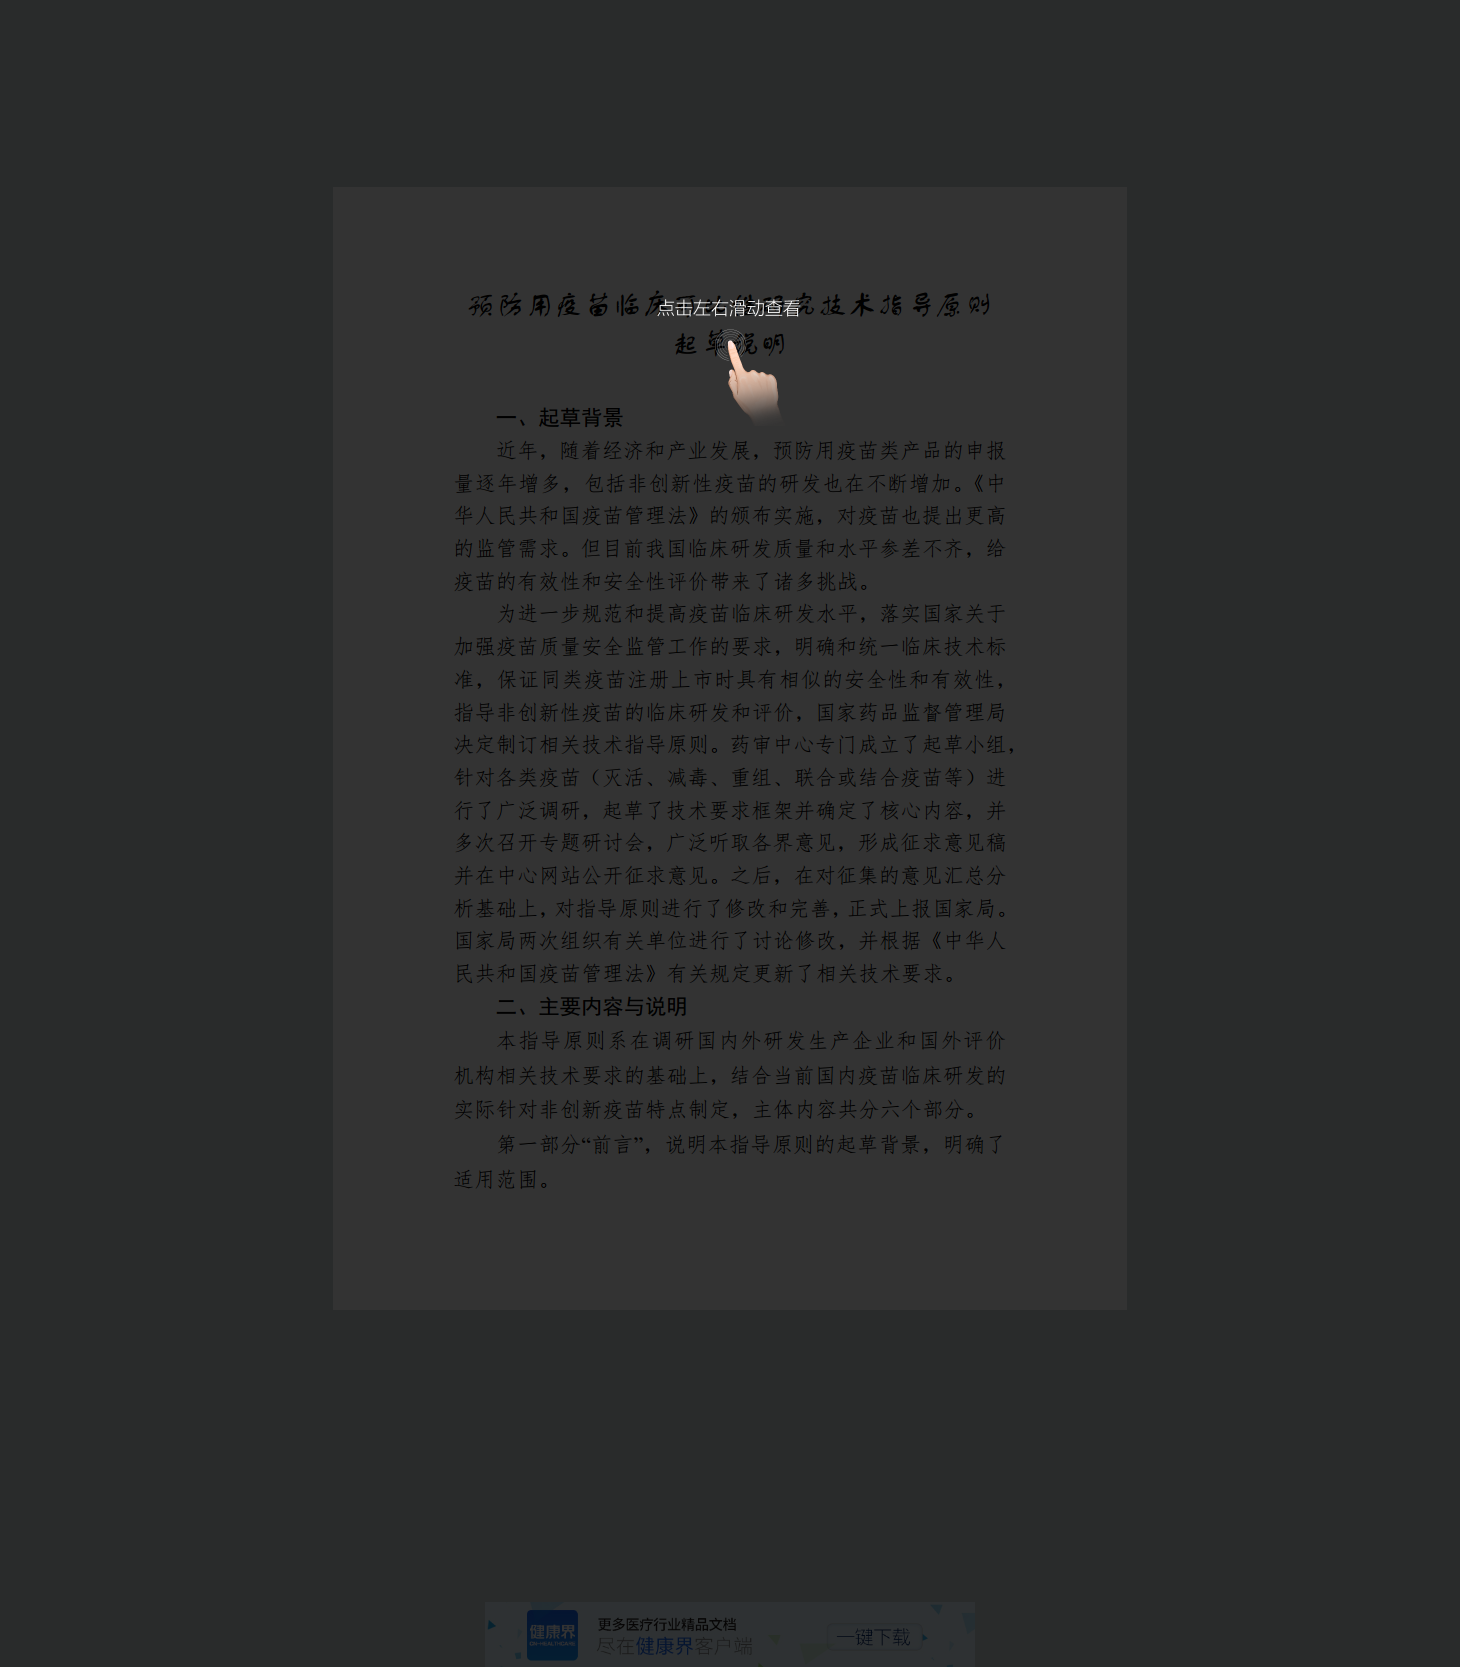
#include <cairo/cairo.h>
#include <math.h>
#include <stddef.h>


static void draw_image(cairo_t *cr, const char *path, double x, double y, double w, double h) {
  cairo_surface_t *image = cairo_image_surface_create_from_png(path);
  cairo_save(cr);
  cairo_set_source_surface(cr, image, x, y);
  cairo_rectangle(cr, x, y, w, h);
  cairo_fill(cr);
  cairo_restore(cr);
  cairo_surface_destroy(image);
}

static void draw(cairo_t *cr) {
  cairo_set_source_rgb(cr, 41 / 255.0, 43 / 255.0, 43 / 255.0);
  cairo_paint(cr);
  draw_image(cr, "images/1.png", 333, 187, 794, 1123);
  draw_image(cr, "images/2.png", 657, 299, 144, 127);
  draw_image(cr, "images/3.png", 485, 1602, 490, 65);
}

int main(void) {
  cairo_surface_t *surface = cairo_image_surface_create(CAIRO_FORMAT_RGB24, 1460, 1667);
  cairo_t *cr = cairo_create(surface);
  cairo_font_options_t *options = cairo_font_options_create();
  cairo_font_options_set_hint_metrics(options, CAIRO_HINT_METRICS_OFF);
  cairo_font_options_set_hint_style(options, CAIRO_HINT_STYLE_NONE);
  cairo_set_font_options(cr, options);
  cairo_set_miter_limit(cr, 4);
  draw(cr);
  cairo_surface_write_to_png(surface, "out.png");
  cairo_font_options_destroy(options);
  cairo_destroy(cr);
  cairo_surface_destroy(surface);
  return 0;
}
